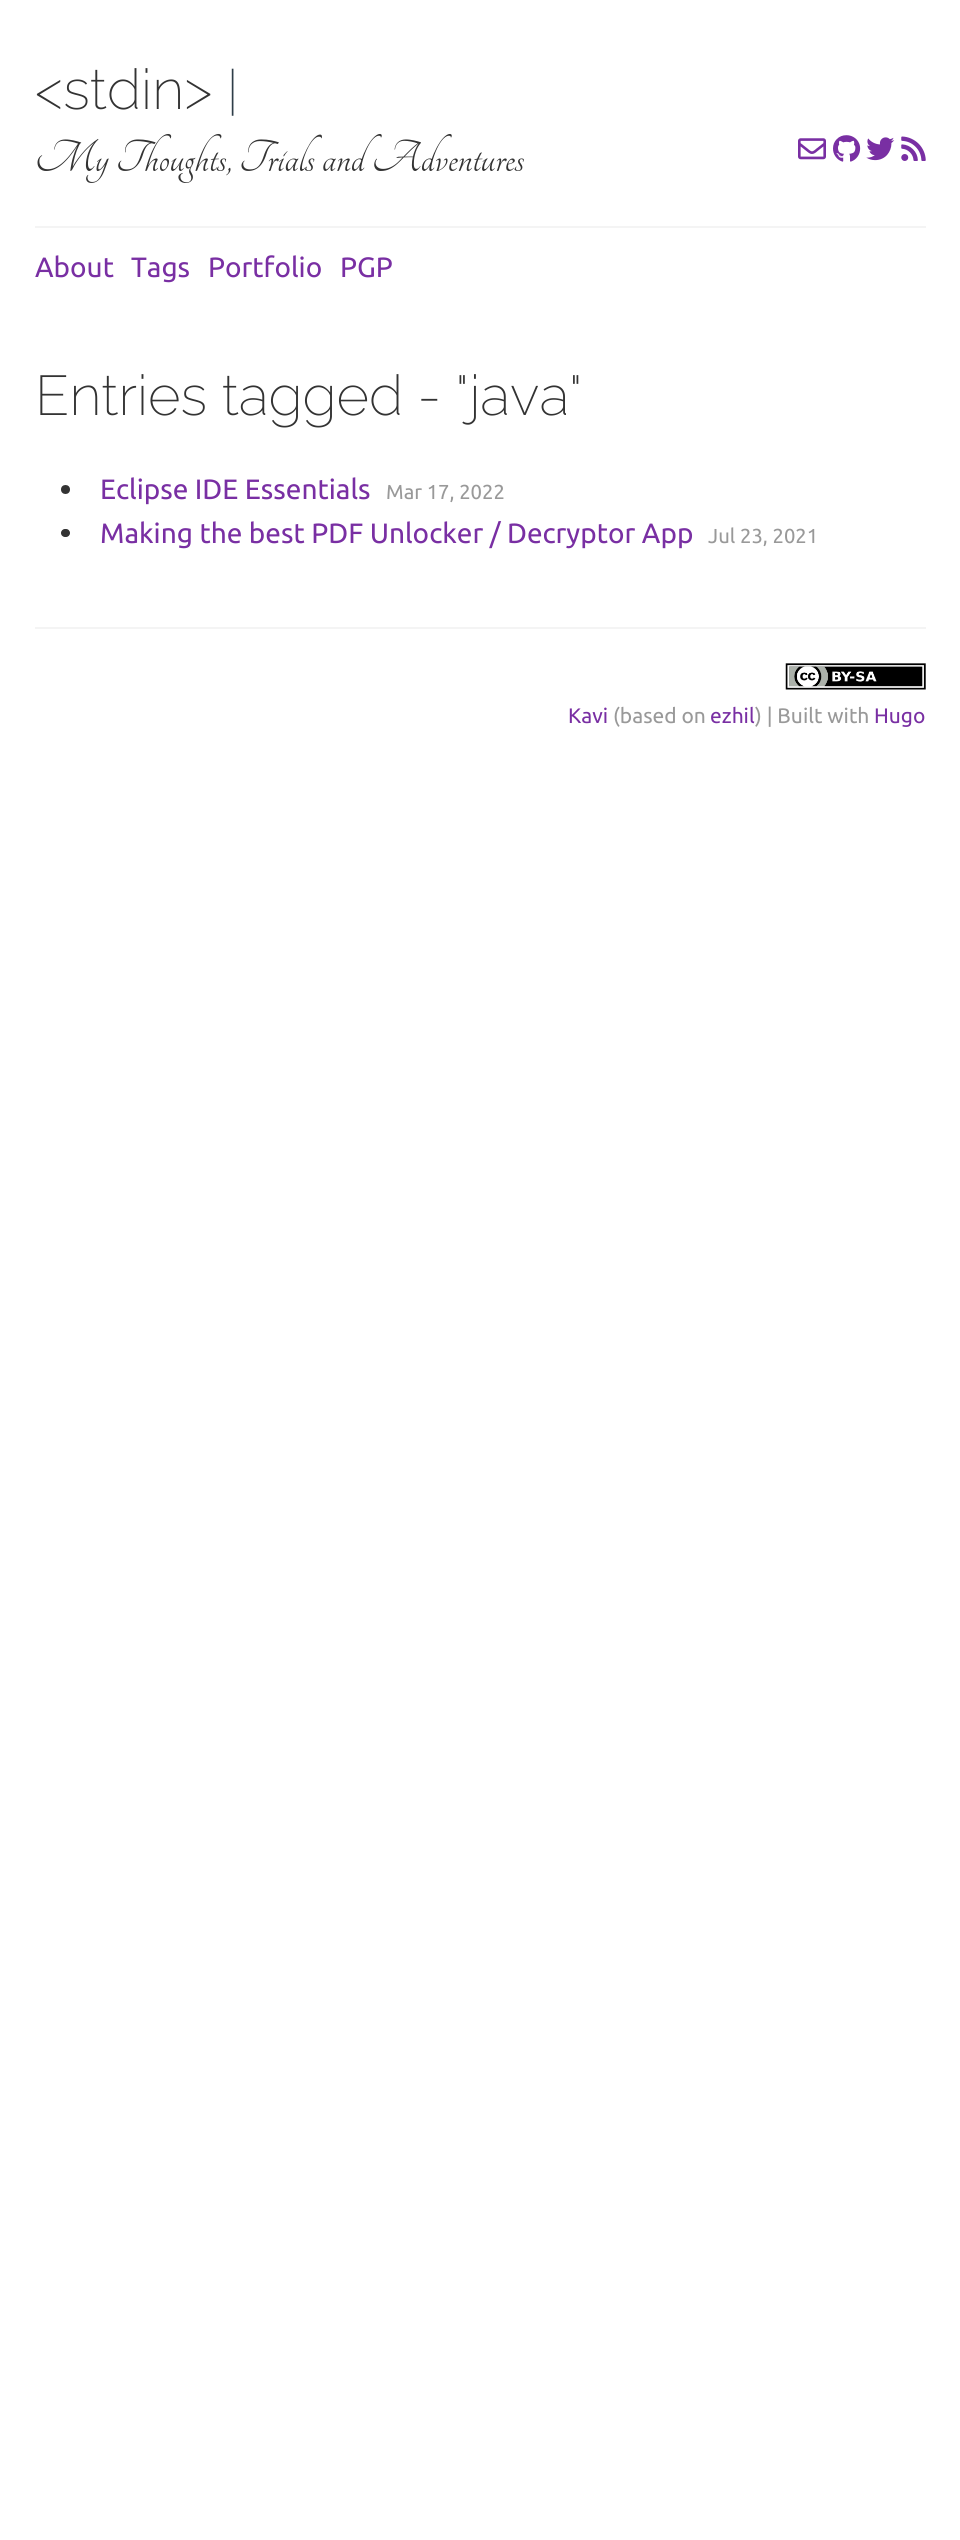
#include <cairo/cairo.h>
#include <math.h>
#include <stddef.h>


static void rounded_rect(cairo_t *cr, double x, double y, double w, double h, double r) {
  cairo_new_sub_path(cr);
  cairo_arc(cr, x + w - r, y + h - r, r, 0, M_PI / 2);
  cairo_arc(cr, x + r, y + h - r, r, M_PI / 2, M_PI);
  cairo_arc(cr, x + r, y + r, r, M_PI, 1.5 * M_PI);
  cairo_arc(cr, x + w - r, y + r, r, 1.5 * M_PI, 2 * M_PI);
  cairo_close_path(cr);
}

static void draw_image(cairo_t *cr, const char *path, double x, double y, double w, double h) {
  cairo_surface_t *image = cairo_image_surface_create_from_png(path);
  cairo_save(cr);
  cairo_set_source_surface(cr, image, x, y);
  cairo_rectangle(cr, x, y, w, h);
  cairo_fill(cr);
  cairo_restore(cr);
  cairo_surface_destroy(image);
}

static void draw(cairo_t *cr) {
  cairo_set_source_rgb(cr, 1, 1, 1);
  cairo_paint(cr);
  draw_image(cr, "images/1.png", 798, 138, 28, 22);
  draw_image(cr, "images/2.png", 833, 135, 28, 27);
  draw_image(cr, "images/3.png", 866, 137, 29, 24);
  draw_image(cr, "images/4.png", 901, 136, 25, 25);
  cairo_set_source_rgb(cr, 244 / 255.0, 244 / 255.0, 244 / 255.0);
  cairo_rectangle(cr, 35, 226, 891, 2);
  cairo_fill(cr);
  cairo_set_source_rgb(cr, 51 / 255.0, 51 / 255.0, 51 / 255.0);
  cairo_arc(cr, 65.5, 489.5, 4.5, 0, 2 * M_PI);
  cairo_fill(cr);
  rounded_rect(cr, 61, 529, 9, 8, 4);
  cairo_fill(cr);
  cairo_set_source_rgb(cr, 244 / 255.0, 244 / 255.0, 244 / 255.0);
  cairo_rectangle(cr, 35, 627, 891, 2);
  cairo_fill(cr);
  draw_image(cr, "images/5.png", 785, 663, 141, 27);
  cairo_select_font_face(cr, "Raleway ExtraLight", CAIRO_FONT_SLANT_NORMAL, CAIRO_FONT_WEIGHT_NORMAL);
  cairo_set_font_size(cr, 56);
  cairo_set_source_rgb(cr, 51 / 255.0, 51 / 255.0, 51 / 255.0);
  cairo_move_to(cr, 35, 109);
  cairo_show_text(cr, "<stdin>");
  cairo_set_font_size(cr, 52);
  cairo_set_source_rgb(cr, 46 / 255.0, 61 / 255.0, 72 / 255.0);
  cairo_move_to(cr, 227, 109);
  cairo_show_text(cr, "|");
  cairo_select_font_face(cr, "Tangerine", CAIRO_FONT_SLANT_NORMAL, CAIRO_FONT_WEIGHT_NORMAL);
  cairo_set_font_size(cr, 49);
  cairo_set_source_rgb(cr, 51 / 255.0, 51 / 255.0, 51 / 255.0);
  cairo_move_to(cr, 35, 171);
  cairo_show_text(cr, "My Thoughts, Trials and Adventures");
  cairo_select_font_face(cr, "Ubuntu", CAIRO_FONT_SLANT_NORMAL, CAIRO_FONT_WEIGHT_NORMAL);
  cairo_set_font_size(cr, 28);
  cairo_set_source_rgb(cr, 121 / 255.0, 47 / 255.0, 163 / 255.0);
  cairo_move_to(cr, 35, 277);
  cairo_show_text(cr, "About");
  cairo_move_to(cr, 131, 277);
  cairo_show_text(cr, "Tags");
  cairo_move_to(cr, 208, 277);
  cairo_show_text(cr, "Portfolio");
  cairo_move_to(cr, 340, 277);
  cairo_show_text(cr, "PGP");
  cairo_select_font_face(cr, "Raleway ExtraLight", CAIRO_FONT_SLANT_NORMAL, CAIRO_FONT_WEIGHT_NORMAL);
  cairo_set_font_size(cr, 56);
  cairo_set_source_rgb(cr, 51 / 255.0, 51 / 255.0, 51 / 255.0);
  cairo_move_to(cr, 35, 415);
  cairo_show_text(cr, "Entries tagged - \"java\"");
  cairo_select_font_face(cr, "Ubuntu", CAIRO_FONT_SLANT_NORMAL, CAIRO_FONT_WEIGHT_NORMAL);
  cairo_set_font_size(cr, 28);
  cairo_set_source_rgb(cr, 121 / 255.0, 47 / 255.0, 163 / 255.0);
  cairo_move_to(cr, 100, 499);
  cairo_show_text(cr, "Eclipse IDE Essentials");
  cairo_set_font_size(cr, 20.25);
  cairo_set_source_rgb(cr, 153 / 255.0, 153 / 255.0, 153 / 255.0);
  cairo_move_to(cr, 386, 499);
  cairo_show_text(cr, "Mar 17, 2022");
  cairo_set_font_size(cr, 28);
  cairo_set_source_rgb(cr, 121 / 255.0, 47 / 255.0, 163 / 255.0);
  cairo_move_to(cr, 100, 543);
  cairo_show_text(cr, "Making the best PDF Unlocker / Decryptor App");
  cairo_set_font_size(cr, 20.25);
  cairo_set_source_rgb(cr, 153 / 255.0, 153 / 255.0, 153 / 255.0);
  cairo_move_to(cr, 708, 543);
  cairo_show_text(cr, "Jul 23, 2021");
  cairo_set_font_size(cr, 21);
  cairo_set_source_rgb(cr, 121 / 255.0, 47 / 255.0, 163 / 255.0);
  cairo_move_to(cr, 568, 723);
  cairo_show_text(cr, "Kavi");
  cairo_set_source_rgb(cr, 153 / 255.0, 153 / 255.0, 153 / 255.0);
  cairo_move_to(cr, 613, 723);
  cairo_show_text(cr, "(based on");
  cairo_set_source_rgb(cr, 121 / 255.0, 47 / 255.0, 163 / 255.0);
  cairo_move_to(cr, 710, 723);
  cairo_show_text(cr, "ezhil");
  cairo_set_source_rgb(cr, 153 / 255.0, 153 / 255.0, 153 / 255.0);
  cairo_move_to(cr, 755, 723);
  cairo_show_text(cr, ") | Built with");
  cairo_set_source_rgb(cr, 121 / 255.0, 47 / 255.0, 163 / 255.0);
  cairo_move_to(cr, 874, 723);
  cairo_show_text(cr, "Hugo");
}

int main(void) {
  cairo_surface_t *surface = cairo_image_surface_create(CAIRO_FORMAT_RGB24, 960, 2540);
  cairo_t *cr = cairo_create(surface);
  cairo_font_options_t *options = cairo_font_options_create();
  cairo_font_options_set_hint_metrics(options, CAIRO_HINT_METRICS_OFF);
  cairo_font_options_set_hint_style(options, CAIRO_HINT_STYLE_NONE);
  cairo_set_font_options(cr, options);
  cairo_set_miter_limit(cr, 4);
  draw(cr);
  cairo_surface_write_to_png(surface, "out.png");
  cairo_font_options_destroy(options);
  cairo_destroy(cr);
  cairo_surface_destroy(surface);
  return 0;
}
